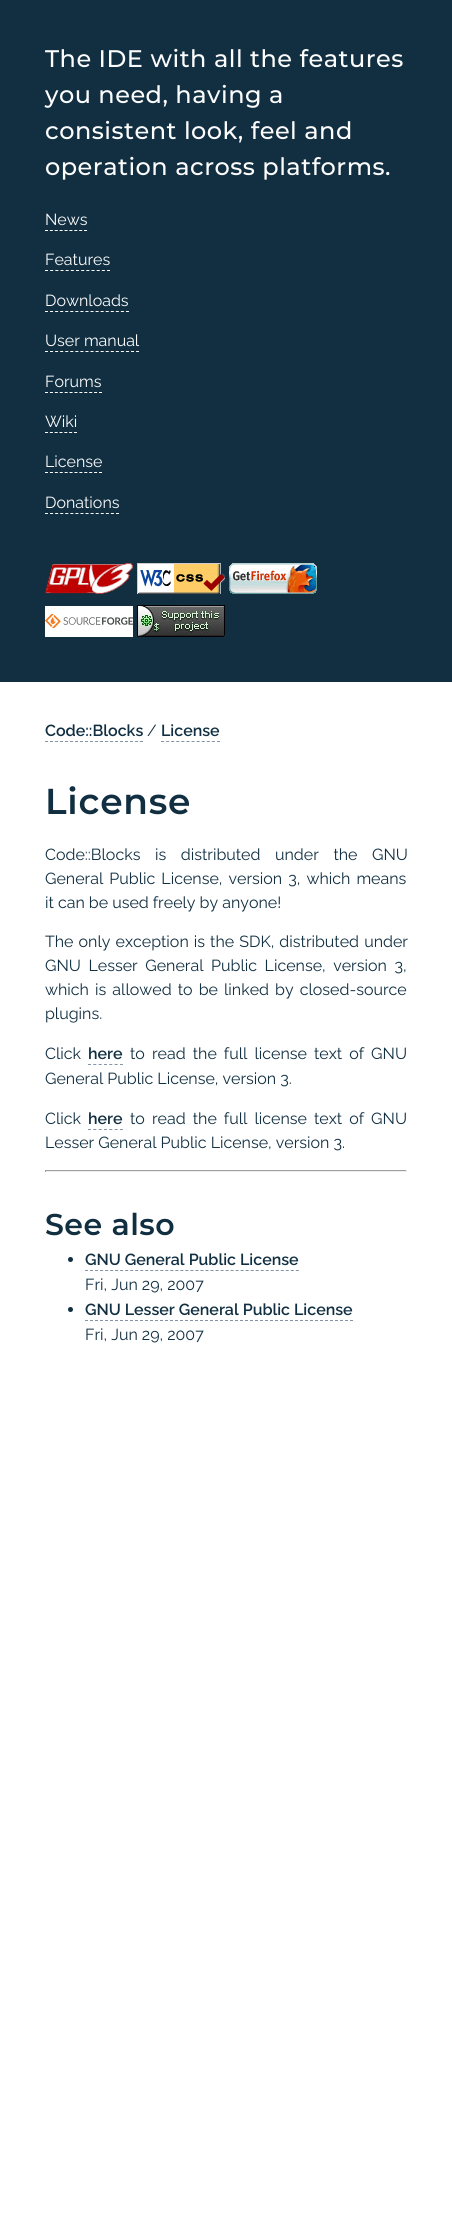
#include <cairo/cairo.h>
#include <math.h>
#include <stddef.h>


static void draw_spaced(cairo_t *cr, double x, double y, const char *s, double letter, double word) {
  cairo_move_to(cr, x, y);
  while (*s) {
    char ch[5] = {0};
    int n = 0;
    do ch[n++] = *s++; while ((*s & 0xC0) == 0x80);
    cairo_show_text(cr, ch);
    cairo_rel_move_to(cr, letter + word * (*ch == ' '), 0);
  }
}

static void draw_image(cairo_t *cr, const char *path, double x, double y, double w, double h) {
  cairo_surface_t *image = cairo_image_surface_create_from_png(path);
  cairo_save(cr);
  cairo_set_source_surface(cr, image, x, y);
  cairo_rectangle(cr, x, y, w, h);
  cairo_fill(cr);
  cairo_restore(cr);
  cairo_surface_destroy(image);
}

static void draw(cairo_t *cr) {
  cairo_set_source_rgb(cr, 1, 1, 1);
  cairo_paint(cr);
  cairo_set_source_rgb(cr, 17 / 255.0, 47 / 255.0, 65 / 255.0);
  cairo_rectangle(cr, 0, 0, 452, 682);
  cairo_fill(cr);
  cairo_new_path(cr);
  cairo_move_to(cr, 45, 230.5);
  cairo_line_to(cr, 87, 230.5);
  cairo_set_source_rgb(cr, 252 / 255.0, 252 / 255.0, 253 / 255.0);
  cairo_set_line_width(cr, 1);
  cairo_set_dash(cr, (double[]){3, 1.88}, 2, 0);
  cairo_stroke(cr);
  cairo_new_path(cr);
  cairo_move_to(cr, 45, 270.5);
  cairo_line_to(cr, 110, 270.5);
  cairo_set_dash(cr, (double[]){3, 2.17}, 2, 0);
  cairo_stroke(cr);
  cairo_new_path(cr);
  cairo_move_to(cr, 45, 311.5);
  cairo_line_to(cr, 129, 311.5);
  cairo_set_dash(cr, (double[]){3, 2.06}, 2, 0);
  cairo_stroke(cr);
  cairo_new_path(cr);
  cairo_move_to(cr, 45, 351.5);
  cairo_line_to(cr, 139, 351.5);
  cairo_stroke(cr);
  cairo_new_path(cr);
  cairo_move_to(cr, 45, 392.5);
  cairo_line_to(cr, 102, 392.5);
  cairo_set_dash(cr, (double[]){3, 1.91}, 2, 0);
  cairo_stroke(cr);
  cairo_new_path(cr);
  cairo_move_to(cr, 45, 432.5);
  cairo_line_to(cr, 77, 432.5);
  cairo_set_dash(cr, (double[]){3, 1.83}, 2, 0);
  cairo_stroke(cr);
  cairo_new_path(cr);
  cairo_move_to(cr, 45, 472.5);
  cairo_line_to(cr, 102, 472.5);
  cairo_set_dash(cr, (double[]){3, 1.91}, 2, 0);
  cairo_stroke(cr);
  cairo_new_path(cr);
  cairo_move_to(cr, 45, 513.5);
  cairo_line_to(cr, 119, 513.5);
  cairo_set_dash(cr, (double[]){3, 2.07}, 2, 0);
  cairo_stroke(cr);
  draw_image(cr, "images/1.png", 45, 563, 88, 31);
  draw_image(cr, "images/2.png", 137, 563, 88, 31);
  draw_image(cr, "images/3.png", 229, 563, 88, 31);
  draw_image(cr, "images/4.png", 45, 606, 88, 31);
  draw_image(cr, "images/5.png", 137, 605, 88, 32);
  cairo_new_path(cr);
  cairo_move_to(cr, 45, 741.5);
  cairo_line_to(cr, 143, 741.5);
  cairo_set_source_rgb(cr, 132 / 255.0, 148 / 255.0, 164 / 255.0);
  cairo_set_dash(cr, (double[]){3, 2}, 2, 0);
  cairo_stroke(cr);
  cairo_new_path(cr);
  cairo_move_to(cr, 161, 741.5);
  cairo_line_to(cr, 220, 741.5);
  cairo_set_dash(cr, (double[]){3, 2.09}, 2, 0);
  cairo_stroke(cr);
  cairo_new_path(cr);
  cairo_move_to(cr, 88, 1064.5);
  cairo_line_to(cr, 123, 1064.5);
  cairo_set_dash(cr, (double[]){3, 2.33}, 2, 0);
  cairo_stroke(cr);
  cairo_new_path(cr);
  cairo_move_to(cr, 88, 1129.5);
  cairo_line_to(cr, 123, 1129.5);
  cairo_stroke(cr);
  cairo_set_source_rgb(cr, 159 / 255.0, 159 / 255.0, 159 / 255.0);
  cairo_rectangle(cr, 45, 1170, 362, 1);
  cairo_fill(cr);
  cairo_set_source_rgb(cr, 238 / 255.0, 238 / 255.0, 238 / 255.0);
  cairo_rectangle(cr, 406, 1170, 1, 2);
  cairo_fill(cr);
  cairo_rectangle(cr, 45, 1171, 362, 1);
  cairo_fill(cr);
  cairo_set_source_rgb(cr, 159 / 255.0, 159 / 255.0, 159 / 255.0);
  cairo_rectangle(cr, 45, 1170, 1, 2);
  cairo_fill(cr);
  cairo_set_source_rgb(cr, 17 / 255.0, 47 / 255.0, 65 / 255.0);
  cairo_arc(cr, 70.5, 1259.5, 2.5, 0, 2 * M_PI);
  cairo_fill(cr);
  cairo_new_path(cr);
  cairo_move_to(cr, 85, 1270.5);
  cairo_line_to(cr, 299, 1270.5);
  cairo_set_source_rgb(cr, 132 / 255.0, 148 / 255.0, 164 / 255.0);
  cairo_set_dash(cr, (double[]){3, 2.02}, 2, 0);
  cairo_stroke(cr);
  cairo_set_source_rgb(cr, 17 / 255.0, 47 / 255.0, 65 / 255.0);
  cairo_arc(cr, 70.5, 1309.5, 2.5, 0, 2 * M_PI);
  cairo_fill(cr);
  cairo_new_path(cr);
  cairo_move_to(cr, 85, 1320.5);
  cairo_line_to(cr, 353, 1320.5);
  cairo_set_source_rgb(cr, 132 / 255.0, 148 / 255.0, 164 / 255.0);
  cairo_set_dash(cr, (double[]){3, 2}, 2, 0);
  cairo_stroke(cr);
  cairo_select_font_face(cr, "Montserrat Medium", CAIRO_FONT_SLANT_NORMAL, CAIRO_FONT_WEIGHT_NORMAL);
  cairo_set_font_size(cr, 24);
  cairo_set_source_rgb(cr, 252 / 255.0, 252 / 255.0, 253 / 255.0);
  draw_spaced(cr, 45, 67, "The IDE with all the features", 0.5, 0);
  draw_spaced(cr, 45, 103, "you need, having a", 0.5, 0);
  draw_spaced(cr, 45, 139, "consistent look, feel and", 0.5, 0);
  draw_spaced(cr, 45, 175, "operation across platforms.", 0.5, 0);
  cairo_select_font_face(cr, "Raleway", CAIRO_FONT_SLANT_NORMAL, CAIRO_FONT_WEIGHT_NORMAL);
  cairo_set_font_size(cr, 16);
  cairo_move_to(cr, 45, 225);
  cairo_show_text(cr, "News");
  cairo_move_to(cr, 45, 265);
  cairo_show_text(cr, "Features");
  cairo_move_to(cr, 45, 306);
  cairo_show_text(cr, "Downloads");
  cairo_move_to(cr, 45, 346);
  cairo_show_text(cr, "User manual");
  cairo_move_to(cr, 45, 387);
  cairo_show_text(cr, "Forums");
  cairo_move_to(cr, 45, 427);
  cairo_show_text(cr, "Wiki");
  cairo_move_to(cr, 45, 467);
  cairo_show_text(cr, "License");
  cairo_move_to(cr, 45, 508);
  cairo_show_text(cr, "Donations");
  cairo_select_font_face(cr, "Raleway SemiBold", CAIRO_FONT_SLANT_NORMAL, CAIRO_FONT_WEIGHT_NORMAL);
  cairo_set_source_rgb(cr, 17 / 255.0, 47 / 255.0, 65 / 255.0);
  cairo_move_to(cr, 45, 736);
  cairo_show_text(cr, "Code::Blocks");
  cairo_select_font_face(cr, "Raleway", CAIRO_FONT_SLANT_NORMAL, CAIRO_FONT_WEIGHT_NORMAL);
  cairo_move_to(cr, 147, 736);
  cairo_show_text(cr, "/");
  cairo_select_font_face(cr, "Raleway SemiBold", CAIRO_FONT_SLANT_NORMAL, CAIRO_FONT_WEIGHT_NORMAL);
  cairo_move_to(cr, 161, 736);
  cairo_show_text(cr, "License");
  cairo_select_font_face(cr, "Montserrat SemiBold", CAIRO_FONT_SLANT_NORMAL, CAIRO_FONT_WEIGHT_NORMAL);
  cairo_set_font_size(cr, 36);
  draw_spaced(cr, 45, 814, "License", 0.75, 0);
  cairo_select_font_face(cr, "Raleway", CAIRO_FONT_SLANT_NORMAL, CAIRO_FONT_WEIGHT_NORMAL);
  cairo_set_font_size(cr, 16);
  draw_spaced(cr, 45, 860, "Code::Blocks is distributed under the GNU", 0, 10.5);
  draw_spaced(cr, 45, 884, "General Public License, version 3, which means", 0, 2);
  cairo_move_to(cr, 45, 908);
  cairo_show_text(cr, "it can be used freely by anyone!");
  draw_spaced(cr, 45, 947, "The only exception is the SDK, distributed under", 0, 1);
  draw_spaced(cr, 45, 971, "GNU Lesser General Public License, version 3,", 0, 3.5);
  draw_spaced(cr, 45, 995, "which is allowed to be linked by closed-source", 0, 2);
  cairo_move_to(cr, 45, 1019);
  cairo_show_text(cr, "plugins.");
  cairo_move_to(cr, 45, 1059);
  cairo_show_text(cr, "Click");
  cairo_select_font_face(cr, "Raleway SemiBold", CAIRO_FONT_SLANT_NORMAL, CAIRO_FONT_WEIGHT_NORMAL);
  cairo_move_to(cr, 88, 1059);
  cairo_show_text(cr, "here");
  cairo_select_font_face(cr, "Raleway", CAIRO_FONT_SLANT_NORMAL, CAIRO_FONT_WEIGHT_NORMAL);
  draw_spaced(cr, 130, 1059, "to read the full license text of GNU", 0, 3);
  cairo_move_to(cr, 45, 1084);
  cairo_show_text(cr, "General Public License, version 3.");
  cairo_move_to(cr, 45, 1124);
  cairo_show_text(cr, "Click");
  cairo_select_font_face(cr, "Raleway SemiBold", CAIRO_FONT_SLANT_NORMAL, CAIRO_FONT_WEIGHT_NORMAL);
  cairo_move_to(cr, 88, 1124);
  cairo_show_text(cr, "here");
  cairo_select_font_face(cr, "Raleway", CAIRO_FONT_SLANT_NORMAL, CAIRO_FONT_WEIGHT_NORMAL);
  draw_spaced(cr, 130, 1124, "to read the full license text of GNU", 0, 3);
  cairo_move_to(cr, 45, 1148);
  cairo_show_text(cr, "Lesser General Public License, version 3.");
  cairo_select_font_face(cr, "Montserrat SemiBold", CAIRO_FONT_SLANT_NORMAL, CAIRO_FONT_WEIGHT_NORMAL);
  cairo_set_font_size(cr, 30);
  draw_spaced(cr, 45, 1235, "See also", 0.5, 0);
  cairo_select_font_face(cr, "Raleway SemiBold", CAIRO_FONT_SLANT_NORMAL, CAIRO_FONT_WEIGHT_NORMAL);
  cairo_set_font_size(cr, 16);
  cairo_move_to(cr, 85, 1265);
  cairo_show_text(cr, "GNU General Public License");
  cairo_select_font_face(cr, "Raleway", CAIRO_FONT_SLANT_NORMAL, CAIRO_FONT_WEIGHT_NORMAL);
  cairo_move_to(cr, 85, 1290);
  cairo_show_text(cr, "Fri, Jun 29, 2007");
  cairo_select_font_face(cr, "Raleway SemiBold", CAIRO_FONT_SLANT_NORMAL, CAIRO_FONT_WEIGHT_NORMAL);
  cairo_move_to(cr, 85, 1315);
  cairo_show_text(cr, "GNU Lesser General Public License");
  cairo_select_font_face(cr, "Raleway", CAIRO_FONT_SLANT_NORMAL, CAIRO_FONT_WEIGHT_NORMAL);
  cairo_move_to(cr, 85, 1340);
  cairo_show_text(cr, "Fri, Jun 29, 2007");
}

int main(void) {
  cairo_surface_t *surface = cairo_image_surface_create(CAIRO_FORMAT_RGB24, 452, 2218);
  cairo_t *cr = cairo_create(surface);
  cairo_font_options_t *options = cairo_font_options_create();
  cairo_font_options_set_hint_metrics(options, CAIRO_HINT_METRICS_OFF);
  cairo_font_options_set_hint_style(options, CAIRO_HINT_STYLE_NONE);
  cairo_set_font_options(cr, options);
  cairo_set_miter_limit(cr, 4);
  draw(cr);
  cairo_surface_write_to_png(surface, "out.png");
  cairo_font_options_destroy(options);
  cairo_destroy(cr);
  cairo_surface_destroy(surface);
  return 0;
}
